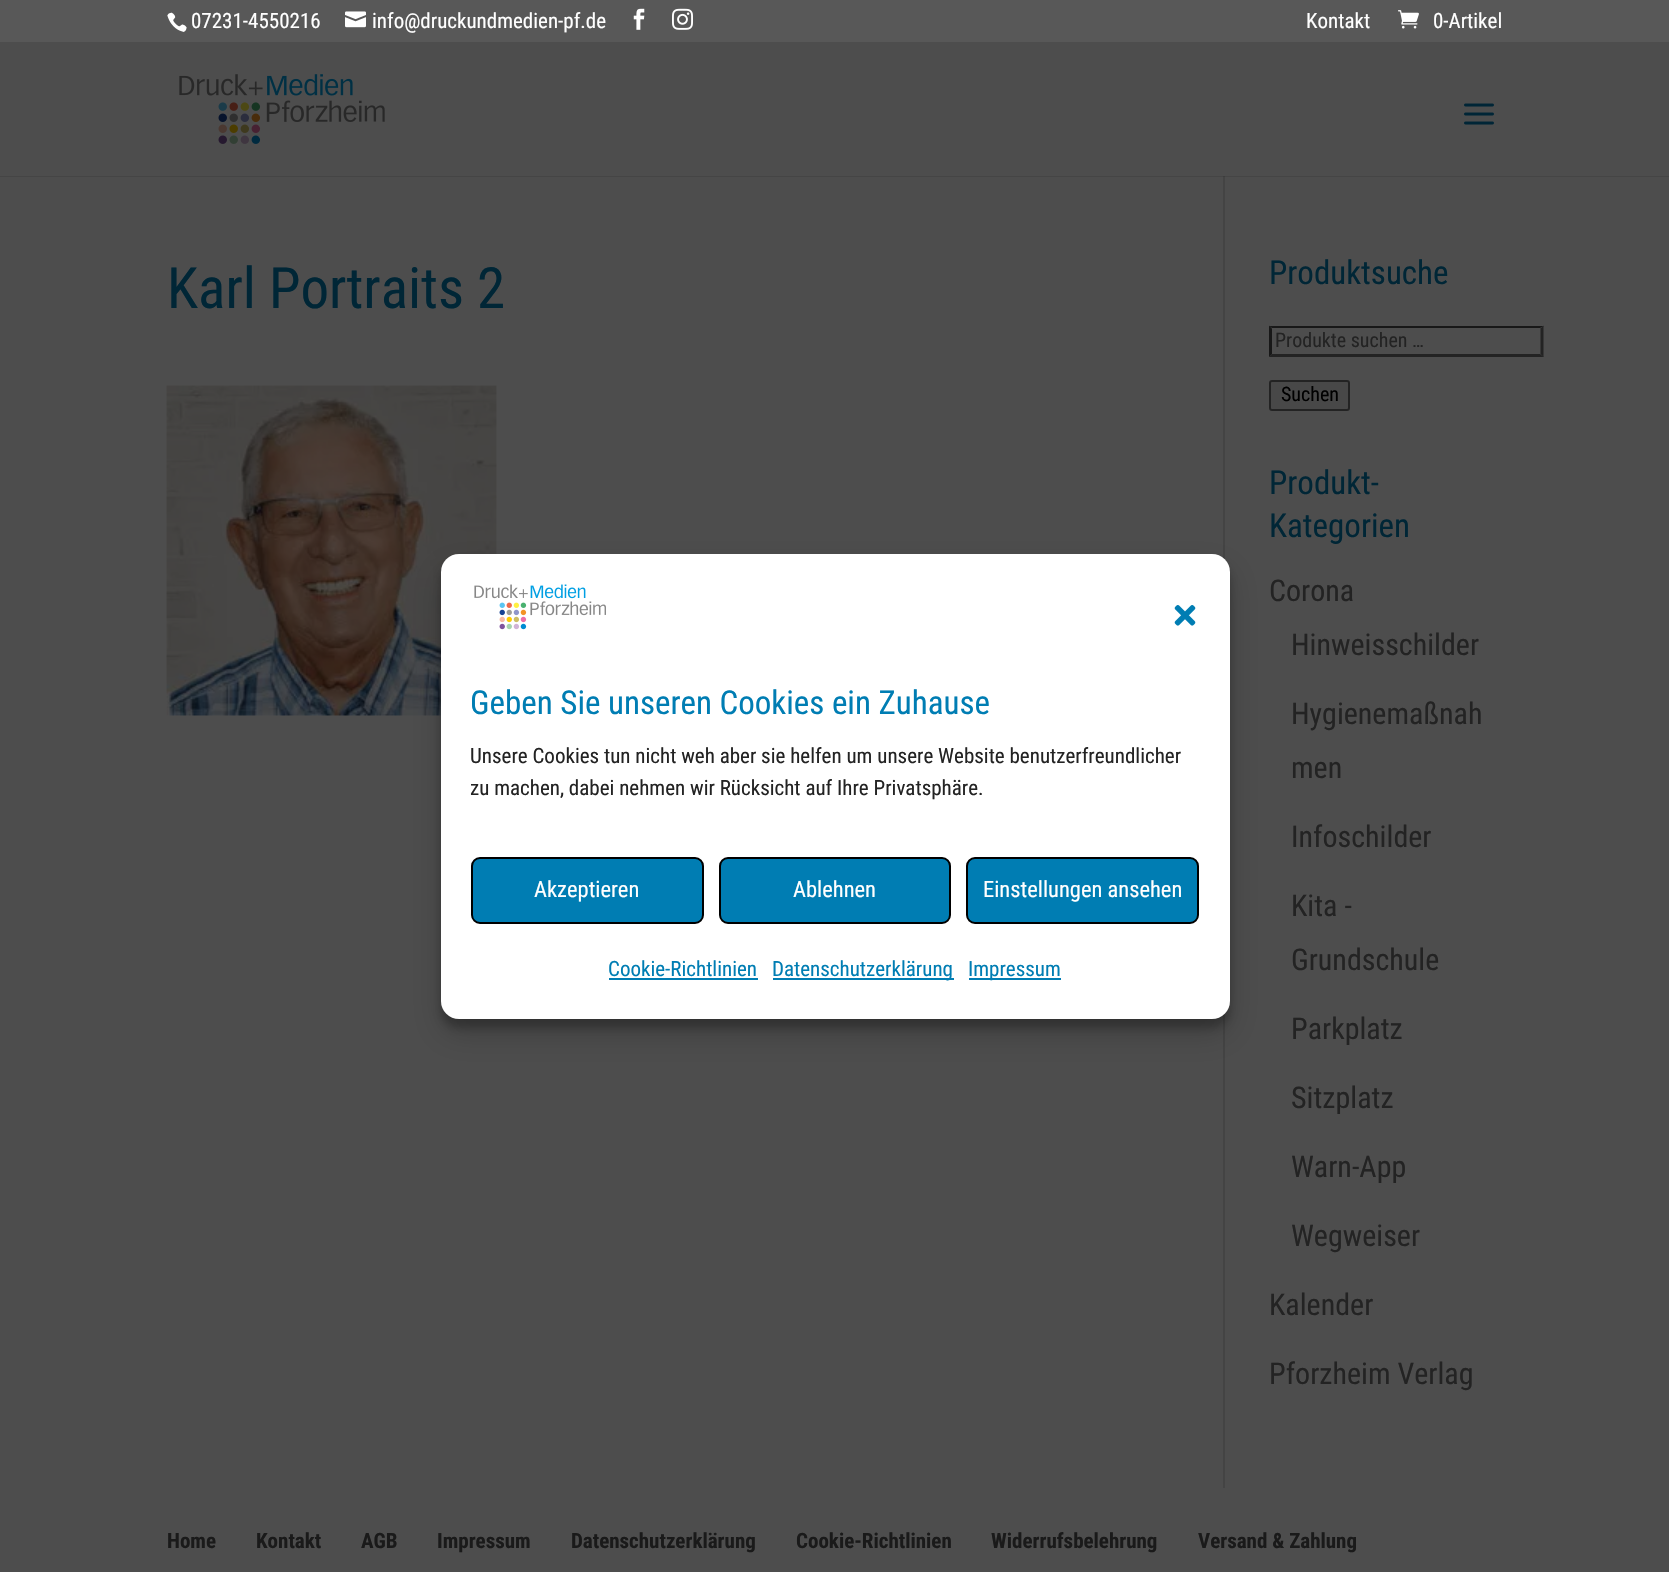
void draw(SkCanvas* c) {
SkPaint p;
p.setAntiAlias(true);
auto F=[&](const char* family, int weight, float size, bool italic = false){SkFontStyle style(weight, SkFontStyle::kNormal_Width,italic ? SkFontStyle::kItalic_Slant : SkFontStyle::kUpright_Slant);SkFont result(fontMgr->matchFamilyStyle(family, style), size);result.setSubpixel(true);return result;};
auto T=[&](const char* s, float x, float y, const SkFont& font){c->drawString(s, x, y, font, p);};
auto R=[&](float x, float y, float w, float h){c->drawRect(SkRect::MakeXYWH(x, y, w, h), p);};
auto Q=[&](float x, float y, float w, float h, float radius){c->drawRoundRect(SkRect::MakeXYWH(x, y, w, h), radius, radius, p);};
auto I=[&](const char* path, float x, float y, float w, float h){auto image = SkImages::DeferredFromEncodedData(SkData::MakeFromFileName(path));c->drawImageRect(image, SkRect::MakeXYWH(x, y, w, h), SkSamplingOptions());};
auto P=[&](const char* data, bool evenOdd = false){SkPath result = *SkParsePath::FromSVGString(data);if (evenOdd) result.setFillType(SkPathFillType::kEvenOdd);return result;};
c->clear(0xff4d4d4d);
p.setColor(0xff585858);
R(0,0,1669,42);
I("1.png",167,12,20,20);
auto f1 = F("Roboto Condensed",400,21);
p.setColor(0xffffffff);
T("07231-4550216",191,28,f1);
I("2.png",345,11,21,17);
T("info@druckundmedien-pf.de",372,28,f1);
I("3.png",633,8,12,22);
I("4.png",672,8,21,22);
T("Kontakt",1306,28,f1);
I("5.png",1398,10,21,19);
T("0-Artikel",1433,28,f1);
p.setColor(0xff444444);
R(1223,176,2,1312);
p.setColor(0x1a000000);
c->drawPath(P("M0 176v1h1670v-133v132z"),p);
I("6.png",179,74,206,70);
I("7.png",1464,103,30,22);
auto f2 = F("Roboto Condensed",400,57);
p.setColor(0xff002636);
T("Karl Portraits 2",167,308,f2);
I("8.png",166,385,331,331);
auto f3 = F("Roboto Condensed",400,33);
T("Produktsuche",1269,284,f3);
p.setColor(0xff181818);
c->drawPath(P("M1269 326h275l-4 2h-268z"),p);
p.setColor(0xff232323);
c->drawPath(P("M1543.5 325.5v31.5l-3-3v-25.5z"),p);
c->drawPath(P("M1544 357h-275l3-3h268z"),p);
p.setColor(0xff181818);
c->drawPath(P("M1269 357v-31.5l3 3v25.5z"),p);
auto f4 = F("Roboto Condensed",400,20);
p.setColor(0xff232323);
T("Produkte suchen …",1275,347,f4);
p.setColor(0xff484848);
c->drawRoundRect(SkRect::MakeXYWH(1270,381,79,29),2,2,p);
p.setStroke(true);
p.setStrokeWidth(2);
p.setColor(0xff232323);
c->drawRoundRect(SkRect::MakeXYWH(1270,381,79,29),2,2,p);
p.setStroke(false);
p.setColor(0xff000000);
T("Suchen",1281,401,f4);
p.setColor(0xff002636);
T("Produkt-",1269,494,f3);
T("Kategorien",1269,537,f3);
auto f5 = F("Roboto Condensed",400,30);
p.setColor(0xff232323);
T("Corona",1269,601,f5);
T("Hinweisschilder",1291,655,f5);
T("Hygienemaßnah",1291,724,f5);
T("men",1291,778,f5);
T("Infoschilder",1291,847,f5);
T("Kita -",1291,916,f5);
T("Grundschule",1291,970,f5);
T("Parkplatz",1291,1039,f5);
T("Sitzplatz",1291,1108,f5);
T("Warn-App",1291,1177,f5);
T("Wegweiser",1291,1246,f5);
T("Kalender",1269,1315,f5);
T("Pforzheim Verlag",1269,1384,f5);
auto f6 = F("Roboto Condensed",700,21);
p.setColor(0xff1a1a1a);
T("Home",167,1548,f6);
T("Kontakt",256,1548,f6);
T("AGB",361,1548,f6);
T("Impressum",437,1548,f6);
T("Datenschutzerklärung",571,1548,f6);
T("Cookie-Richtlinien",796,1548,f6);
T("Widerrufsbelehrung",991,1548,f6);
T("Versand & Zahlung",1198,1548,f6);
p.setColor(0x3b000000);
p.setMaskFilter(SkMaskFilter::MakeBlur(kNormal_SkBlurStyle, 4.5));
c->drawRoundRect(SkRect::MakeXYWH(441,563,789,465),18,18,p);
p.setMaskFilter(nullptr);
p.setColor(0x30000000);
p.setMaskFilter(SkMaskFilter::MakeBlur(kNormal_SkBlurStyle, 15));
c->drawRoundRect(SkRect::MakeXYWH(441,569,789,465),18,18,p);
p.setMaskFilter(nullptr);
p.setColor(0xffffffff);
Q(441,554,789,465,18);
I("9.png",474,584,132,46);
I("10.png",1174,605,22,21);
p.setColor(0xff007db3);
T("Geben Sie unseren Cookies ein Zuhause",470,714,f3);
p.setColor(0xff232323);
T("Unsere Cookies tun nicht weh aber sie helfen um unsere Website benutzerfreundlicher",470,763,f1);
T("zu machen, dabei nehmen wir Rücksicht auf Ihre Privatsphäre.",470,795,f1);
p.setColor(0xff007db3);
c->drawRoundRect(SkRect::MakeXYWH(472,858,231,65),8,8,p);
p.setStroke(true);
p.setColor(0xff000000);
c->drawRoundRect(SkRect::MakeXYWH(472,858,231,65),8,8,p);
auto f7 = F("Roboto Condensed",400,22.5);
p.setStroke(false);
p.setColor(0xffffffff);
T("Akzeptieren",534,897,f7);
p.setColor(0xff007db3);
c->drawRoundRect(SkRect::MakeXYWH(720,858,230,65),8,8,p);
p.setStroke(true);
p.setColor(0xff000000);
c->drawRoundRect(SkRect::MakeXYWH(720,858,230,65),8,8,p);
p.setStroke(false);
p.setColor(0xffffffff);
T("Ablehnen",793,897,f7);
p.setColor(0xff007db3);
c->drawRoundRect(SkRect::MakeXYWH(967,858,231,65),8,8,p);
p.setStroke(true);
p.setColor(0xff000000);
c->drawRoundRect(SkRect::MakeXYWH(967,858,231,65),8,8,p);
p.setStroke(false);
p.setColor(0xffffffff);
T("Einstellungen ansehen",983,897,f7);
p.setColor(0xff007db3);
T("Cookie-Richtlinien",608,976,f1);
R(609,978,149,2);
R(773,978,181,2);
T("Datenschutzerklärung",772,976,f1);
R(969,978,92,2);
T("Impressum",968,976,f1);
}
